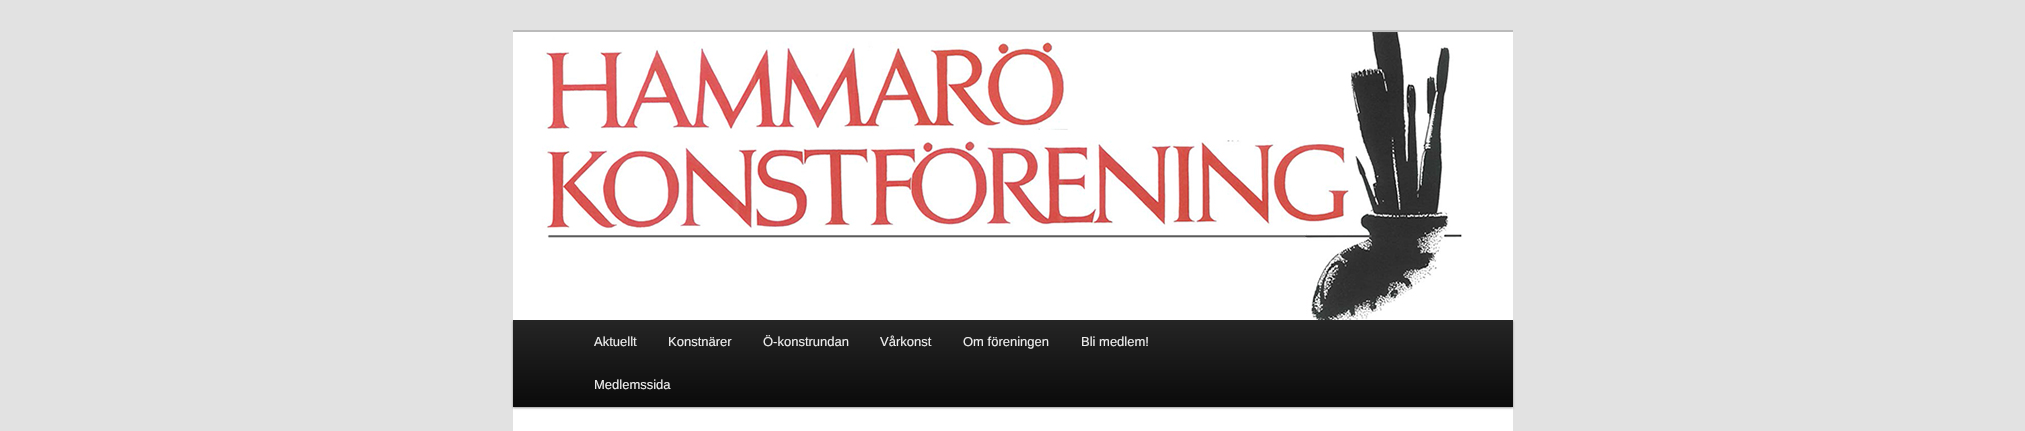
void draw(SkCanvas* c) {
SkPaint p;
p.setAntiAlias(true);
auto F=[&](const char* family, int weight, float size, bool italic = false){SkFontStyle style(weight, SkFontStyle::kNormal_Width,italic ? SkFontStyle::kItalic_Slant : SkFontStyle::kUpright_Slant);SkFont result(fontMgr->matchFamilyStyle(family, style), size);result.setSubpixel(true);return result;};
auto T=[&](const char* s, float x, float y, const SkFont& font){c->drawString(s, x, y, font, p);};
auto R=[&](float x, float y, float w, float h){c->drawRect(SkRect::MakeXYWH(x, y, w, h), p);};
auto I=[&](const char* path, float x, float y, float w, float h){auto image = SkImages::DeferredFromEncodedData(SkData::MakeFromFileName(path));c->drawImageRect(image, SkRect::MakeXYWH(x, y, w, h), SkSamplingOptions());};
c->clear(0xffe2e2e2);
p.setColor(0xffffffff);
R(513,407,1000,24);
p.setColor(0xffbbbbbb);
R(513,30,1000,2);
p.setColor(0x66000000);
p.setMaskFilter(SkMaskFilter::MakeBlur(kNormal_SkBlurStyle, 1));
c->drawRect(SkRect::MakeXYWH(513,321,1000,87),p);
p.setMaskFilter(nullptr);
I("1.png",513,32,1000,288);
{
const SkColor colors[] = {0xff252525,0xff0a0a0a};
const float stops[] = {0,1};
const SkPoint ends[] = {{1013,320}, {1013,407}};
p.setShader(SkGradientShader::MakeLinear(ends, colors, stops, 2, SkTileMode::kClamp));
p.setAlpha(255);
}
R(513,320,1000,87);
auto f1 = F("Liberation Sans",400,13);
p.setShader(nullptr);
p.setColor(0xffeeeeee);
T("Aktuellt",594,346,f1);
T("Konstnärer",668,346,f1);
T("Ö-konstrundan",763,346,f1);
T("Vårkonst",880,346,f1);
T("Om föreningen",963,346,f1);
T("Bli medlem!",1081,346,f1);
T("Medlemssida",594,389,f1);
}
